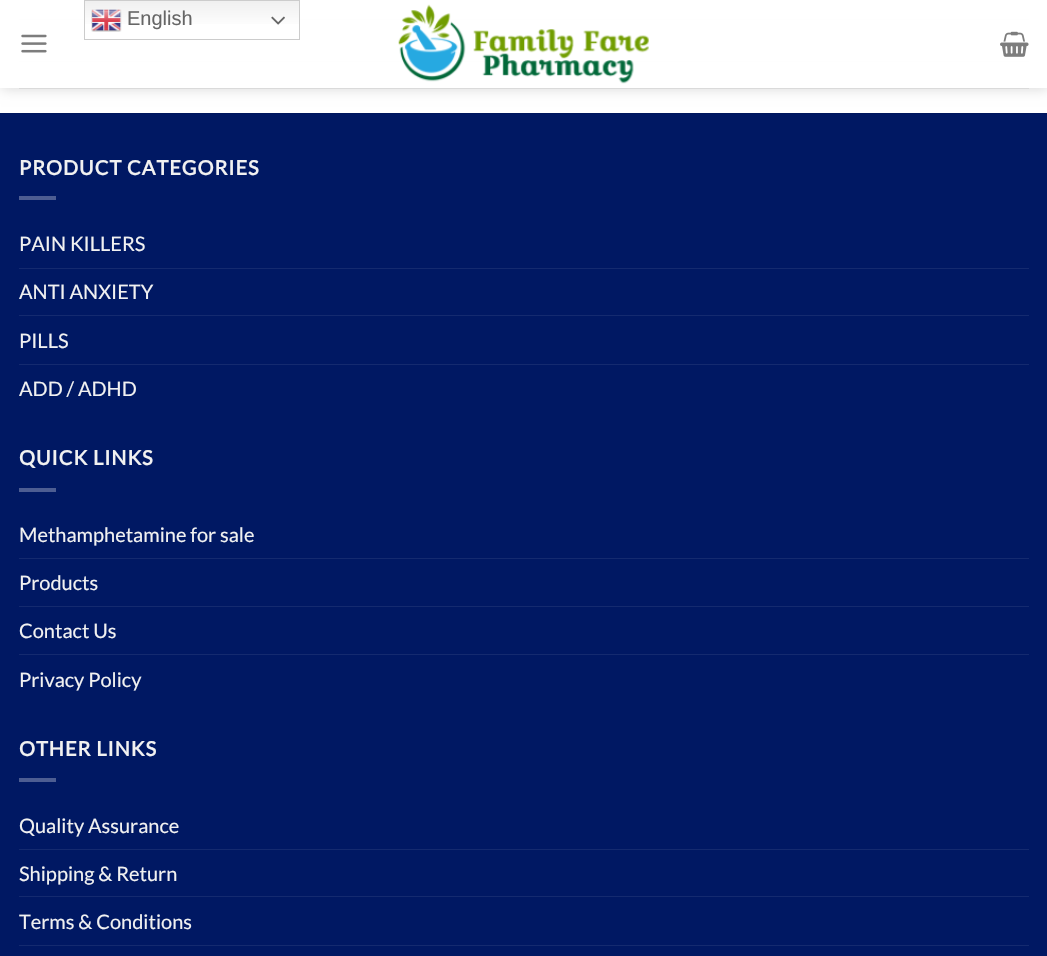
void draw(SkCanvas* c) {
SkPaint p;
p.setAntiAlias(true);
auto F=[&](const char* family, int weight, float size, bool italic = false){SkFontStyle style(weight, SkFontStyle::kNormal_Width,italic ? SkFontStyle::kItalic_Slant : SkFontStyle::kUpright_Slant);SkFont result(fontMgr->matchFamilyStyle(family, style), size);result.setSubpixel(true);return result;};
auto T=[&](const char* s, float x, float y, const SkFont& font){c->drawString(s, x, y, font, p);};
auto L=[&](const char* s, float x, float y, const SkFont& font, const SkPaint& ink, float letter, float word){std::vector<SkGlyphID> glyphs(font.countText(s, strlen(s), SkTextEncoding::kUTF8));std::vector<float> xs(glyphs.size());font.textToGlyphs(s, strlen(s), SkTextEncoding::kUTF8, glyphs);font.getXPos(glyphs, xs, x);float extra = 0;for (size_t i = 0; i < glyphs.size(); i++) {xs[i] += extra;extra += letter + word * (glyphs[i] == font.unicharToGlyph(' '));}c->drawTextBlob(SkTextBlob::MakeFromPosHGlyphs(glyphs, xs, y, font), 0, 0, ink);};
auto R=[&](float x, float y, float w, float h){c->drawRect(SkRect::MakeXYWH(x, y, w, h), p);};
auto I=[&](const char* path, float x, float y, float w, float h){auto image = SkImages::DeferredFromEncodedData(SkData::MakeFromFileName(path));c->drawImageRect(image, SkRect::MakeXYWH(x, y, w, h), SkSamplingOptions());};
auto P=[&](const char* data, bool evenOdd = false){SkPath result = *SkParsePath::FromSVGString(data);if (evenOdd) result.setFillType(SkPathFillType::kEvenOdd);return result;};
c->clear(0xffffffff);
p.setColor(0xffececec);
R(19,19,1010,1);
R(19,61,1010,1);
c->save();
c->clipPath(P("M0 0h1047v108h-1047zm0 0h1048v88h-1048z",true),true);
p.setColor(0x26000000);
p.setMaskFilter(SkMaskFilter::MakeBlur(kNormal_SkBlurStyle, 6));
c->drawRect(SkRect::MakeXYWH(1,1,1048,88),p);
p.setMaskFilter(nullptr);
c->restore();
p.setColor(0xe6ffffff);
R(0,19,1047,69);
{
const SkColor colors[] = {0xffefefef,0xffffffff};
const float stops[] = {0,.7};
const SkPoint ends[] = {{192,0}, {192,40}};
p.setShader(SkGradientShader::MakeLinear(ends, colors, stops, 2, SkTileMode::kClamp));
p.setAlpha(255);
}
R(85,1,214,23);
p.setStroke(true);
p.setStrokeWidth(1);
p.setShader(nullptr);
p.setColor(0xffcccccc);
c->drawRect(SkRect::MakeXYWH(84.5,.5,215,39),p);
I("1.png",91,9,31,23);
auto f1 = F("Liberation Sans",400,20);
p.setStroke(false);
p.setColor(0xff666666);
T("English",127,25,f1);
I("2.png",271,16,14,9);
I("3.png",21,34,26,19);
I("4.png",398,4,251,80);
I("5.png",1000,31,29,26);
p.setColor(0xffdadada);
R(19,88,1010,1);
p.setColor(0xff001863);
R(0,114,1047,842);
p.setColor(0xff00175e);
R(0,113,1047,1);
auto f2 = F("Lato",700,20);
p.setColor(0xfff1f1f1);
L("PRODUCT CATEGORIES",19,175,f2,p,1,0);
p.setColor(0xff4d5d92);
R(19,196,37,4);
auto f3 = F("Lato",400,20);
p.setColor(0xfff1f1f1);
T("PAIN KILLERS",19,251,f3);
p.setColor(0xff142a6f);
R(19,268,1010,1);
p.setColor(0xfff1f1f1);
T("ANTI ANXIETY",19,299,f3);
p.setColor(0xff142a6f);
R(19,315,1010,1);
p.setColor(0xfff1f1f1);
T("PILLS",19,348,f3);
p.setColor(0xff142a6f);
R(19,364,1010,1);
p.setColor(0xfff1f1f1);
T("ADD / ADHD",19,396,f3);
L("QUICK LINKS",19,465,f2,p,1,0);
p.setColor(0xff4d5d92);
R(19,488,37,4);
p.setColor(0xfff1f1f1);
T("Methamphetamine for sale",19,542,f3);
p.setColor(0xff142a6f);
R(19,558,1010,1);
p.setColor(0xfff1f1f1);
T("Products",19,590,f3);
p.setColor(0xff142a6f);
R(19,606,1010,1);
p.setColor(0xfff1f1f1);
T("Contact Us",19,638,f3);
p.setColor(0xff142a6f);
R(19,654,1010,1);
p.setColor(0xfff1f1f1);
T("Privacy Policy",19,687,f3);
L("OTHER LINKS",19,756,f2,p,1,0);
p.setColor(0xff4d5d92);
R(19,778,37,4);
p.setColor(0xfff1f1f1);
T("Quality Assurance",19,833,f3);
p.setColor(0xff142a6f);
R(19,849,1010,1);
p.setColor(0xfff1f1f1);
T("Shipping & Return",19,881,f3);
p.setColor(0xff142a6f);
R(19,896,1010,1);
p.setColor(0xfff1f1f1);
T("Terms & Conditions",19,929,f3);
p.setColor(0xff142a6f);
R(19,945,1010,1);
}
